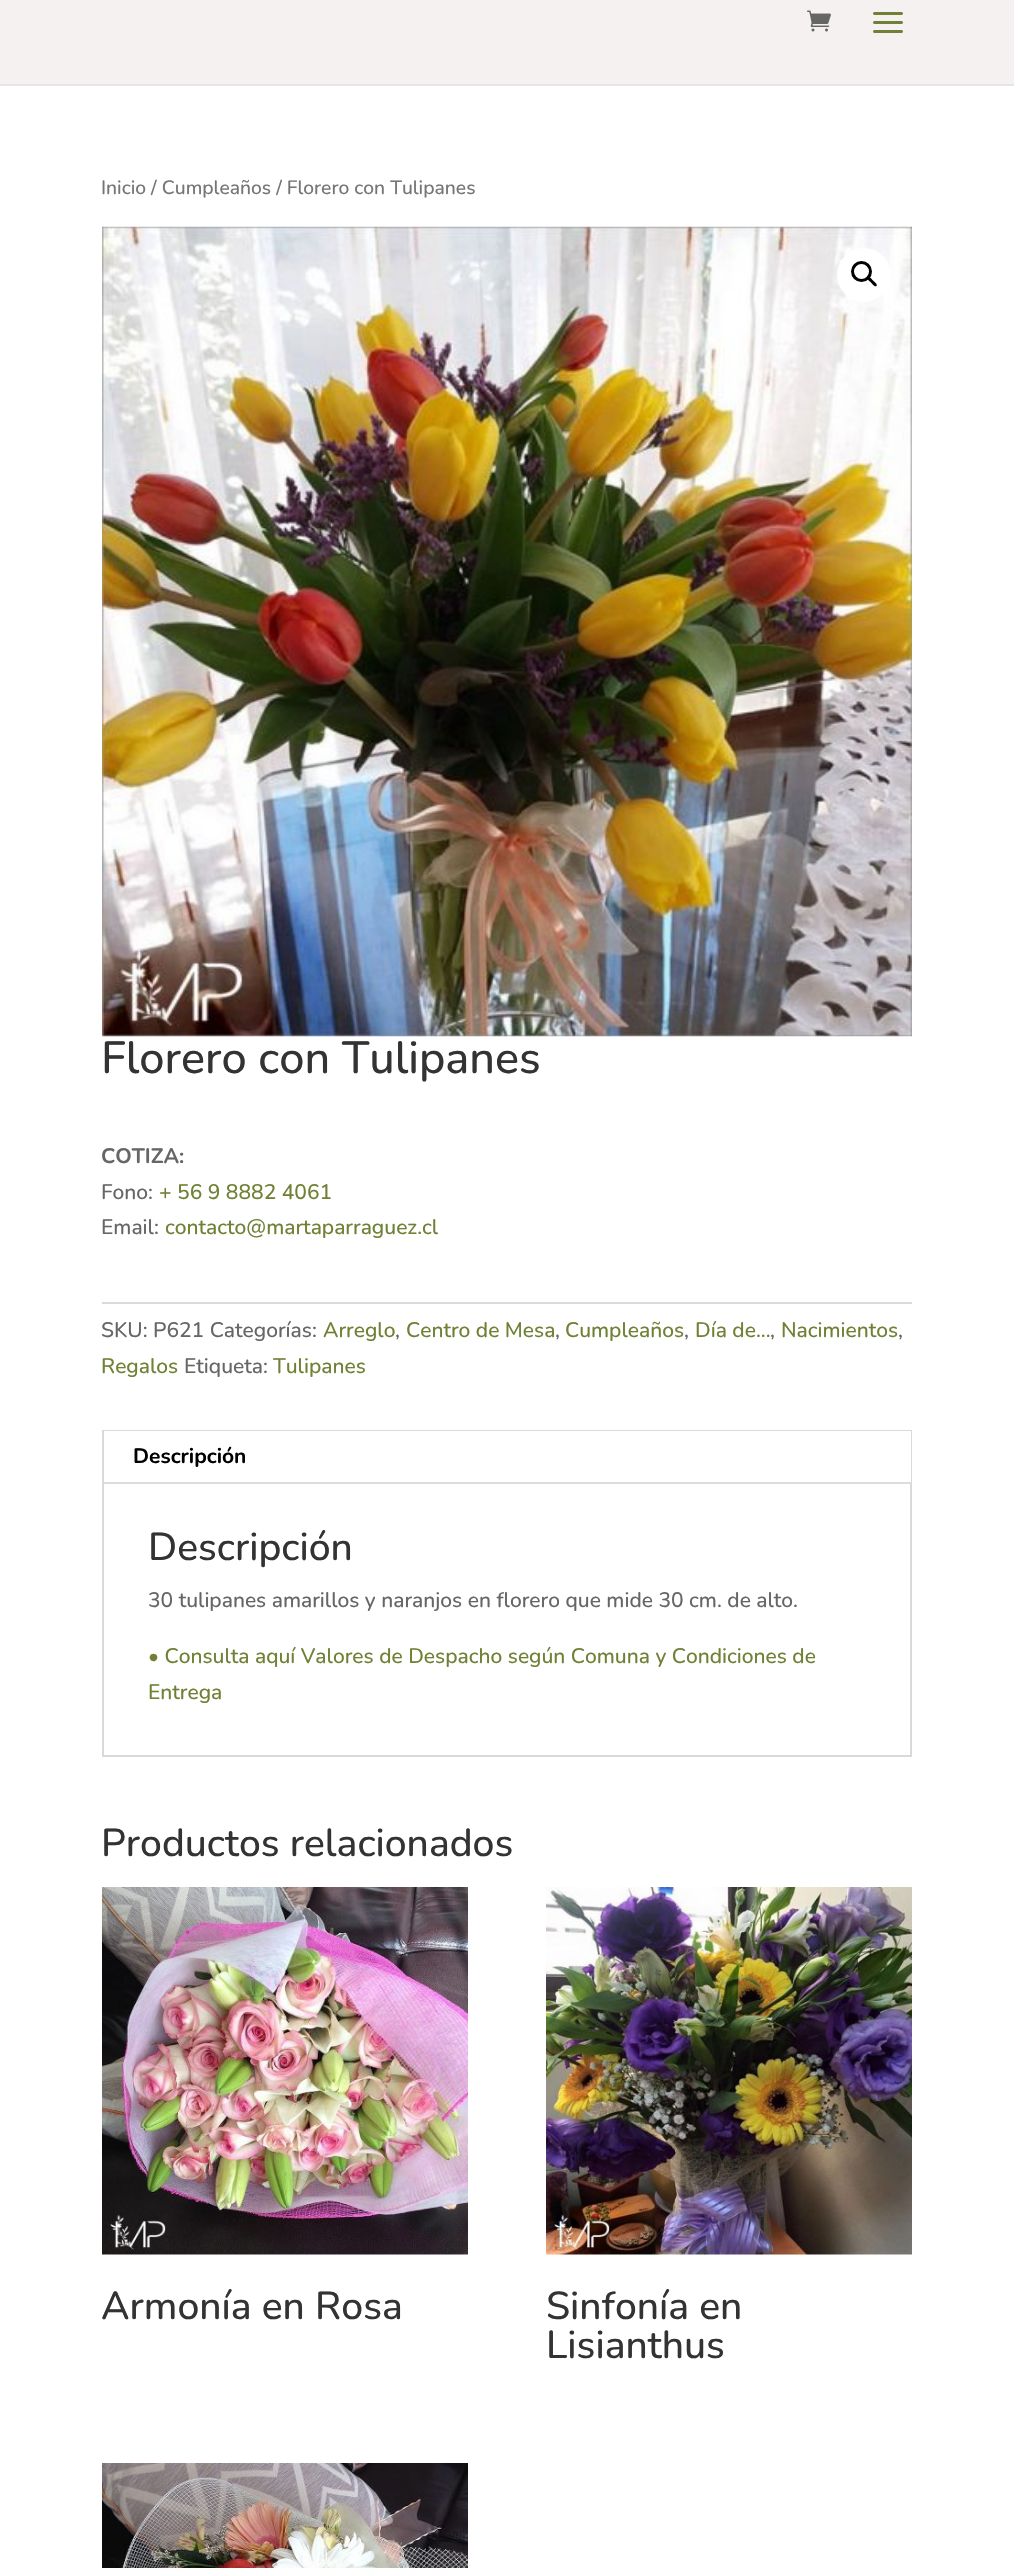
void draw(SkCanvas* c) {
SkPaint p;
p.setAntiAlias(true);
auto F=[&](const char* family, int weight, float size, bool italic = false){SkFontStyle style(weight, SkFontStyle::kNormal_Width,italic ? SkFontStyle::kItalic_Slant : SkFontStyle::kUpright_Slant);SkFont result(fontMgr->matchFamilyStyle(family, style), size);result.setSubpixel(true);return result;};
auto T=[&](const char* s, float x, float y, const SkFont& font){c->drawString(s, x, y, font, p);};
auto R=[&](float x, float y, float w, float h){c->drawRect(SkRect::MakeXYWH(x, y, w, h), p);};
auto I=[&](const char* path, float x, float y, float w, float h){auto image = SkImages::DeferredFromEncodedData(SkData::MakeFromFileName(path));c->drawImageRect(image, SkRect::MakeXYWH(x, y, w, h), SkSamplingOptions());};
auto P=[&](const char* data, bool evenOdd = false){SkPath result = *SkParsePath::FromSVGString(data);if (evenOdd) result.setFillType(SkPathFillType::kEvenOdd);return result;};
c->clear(0xffffffff);
p.setColor(0xffe6e6e6);
R(0,84,1014,2);
p.setColor(0xfff5f1f0);
R(0,0,1014,84);
I("1.png",807,10,24,22);
I("2.png",873,12,30,21);
auto f1 = F("Nunito",500,19.3);
p.setColor(0xff767676);
T("Inicio / Cumpleaños / Florero con Tulipanes",101,194,f1);
I("3.png",102,226,810,811);
p.setColor(0xffffffff);
c->drawCircle(864,275,27,p);
p.setStroke(true);
p.setStrokeWidth(3);
p.setColor(0xff000000);
c->drawCircle(861.5,271.5,9,p);
p.setStroke(false);
c->drawPath(P("M868 277.5c1.5-2 4 2 5 3c1 1 5 3.5 3.5 5.5c-2 1.5-4.5-2.5-5.5-3.5c-1-1-5-3.5-3-5z"),p);
auto f2 = F("Nunito",500,45);
p.setColor(0xff333333);
T("Florero con Tulipanes",101,1073,f2);
auto f3 = F("Nunito",700,21);
p.setColor(0xff666666);
T("COTIZA:",101,1163,f3);
auto f4 = F("Nunito",500,21);
T("Fono:",101,1199,f4);
p.setColor(0xff708136);
T("+ 56 9 8882 4061",159,1199,f4);
p.setColor(0xff666666);
T("Email:",101,1234,f4);
p.setColor(0xff708136);
T("contacto@martaparraguez.cl",165,1234,f4);
p.setColor(0xffdadada);
R(102,1302,810,2);
p.setColor(0xff666666);
T("SKU: P621 Categorías:",101,1337,f4);
p.setColor(0xff708136);
T("Arreglo",323,1337,f4);
p.setColor(0xff666666);
T(",",395,1337,f4);
p.setColor(0xff708136);
T("Centro de Mesa",406,1337,f4);
p.setColor(0xff666666);
T(",",555,1337,f4);
p.setColor(0xff708136);
T("Cumpleaños",565,1337,f4);
p.setColor(0xff666666);
T(",",684,1337,f4);
p.setColor(0xff708136);
T("Día de...",695,1337,f4);
p.setColor(0xff666666);
T(",",770,1337,f4);
p.setColor(0xff708136);
T("Nacimientos",781,1337,f4);
p.setColor(0xff666666);
T(",",898,1337,f4);
p.setColor(0xff708136);
T("Regalos",101,1373,f4);
p.setColor(0xff666666);
T("Etiqueta:",184,1373,f4);
p.setColor(0xff708136);
T("Tulipanes",273,1373,f4);
p.setStroke(true);
p.setStrokeWidth(2);
p.setColor(0xffd9d9d9);
c->drawRect(SkRect::MakeXYWH(103,1431,808,325),p);
p.setStroke(false);
p.setColor(0xffffffff);
R(104,1431,807,51);
p.setColor(0xffe0dadf);
R(104,1482,807,2);
p.setColor(0xff000000);
T("Descripción",133,1463,f3);
auto f5 = F("Nunito",500,39);
p.setColor(0xff333333);
T("Descripción",148,1560,f5);
p.setColor(0xff666666);
T("30 tulipanes amarillos y naranjos en florero que mide 30 cm. de alto.",148,1607,f4);
p.setColor(0xff708136);
T("• Consulta aquí Valores de Despacho según Comuna y Condiciones de",148,1663,f4);
T("Entrega",148,1699,f4);
p.setColor(0xff333333);
T("Productos relacionados",101,1856,f5);
I("4.png",102,1887,366,368);
T("Armonía en Rosa",101,2319,f5);
I("5.png",546,1887,366,368);
T("Sinfonía en",546,2319,f5);
T("Lisianthus",546,2358,f5);
I("6.png",102,2463,366,105);
}
